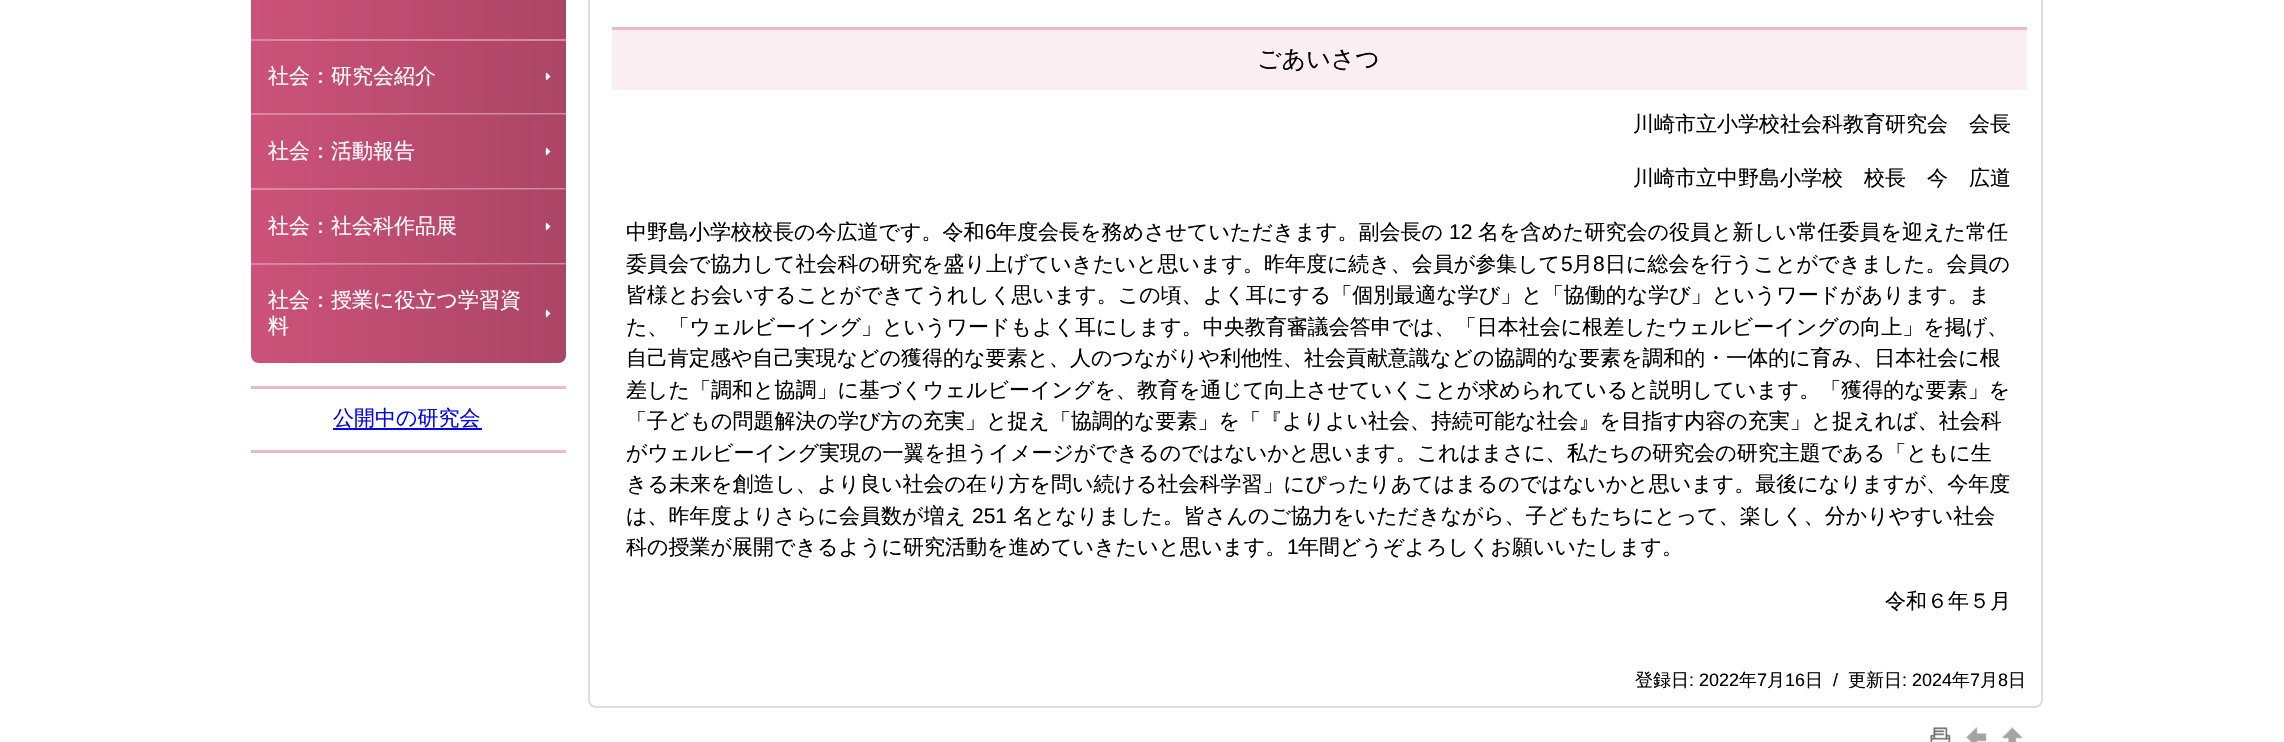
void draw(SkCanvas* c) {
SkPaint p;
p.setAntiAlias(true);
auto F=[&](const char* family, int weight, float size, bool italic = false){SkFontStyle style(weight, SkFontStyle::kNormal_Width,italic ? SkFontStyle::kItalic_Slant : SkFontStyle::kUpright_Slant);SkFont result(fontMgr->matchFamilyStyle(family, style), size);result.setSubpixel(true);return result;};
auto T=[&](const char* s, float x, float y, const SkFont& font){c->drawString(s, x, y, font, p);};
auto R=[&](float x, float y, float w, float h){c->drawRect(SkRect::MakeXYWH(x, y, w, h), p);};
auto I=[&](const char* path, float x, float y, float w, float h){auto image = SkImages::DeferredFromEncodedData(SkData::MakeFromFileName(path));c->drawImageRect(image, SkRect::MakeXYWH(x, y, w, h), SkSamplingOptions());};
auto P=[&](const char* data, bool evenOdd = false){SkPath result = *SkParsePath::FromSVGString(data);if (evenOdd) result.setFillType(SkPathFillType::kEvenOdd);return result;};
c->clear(0xffffffff);
{
const SkColor colors[] = {0xffcc527a,0xffab4566};
const float stops[] = {0,1};
const SkPoint ends[] = {{251,-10}, {566,-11}};
p.setShader(SkGradientShader::MakeLinear(ends, colors, stops, 2, SkTileMode::kClamp));
p.setAlpha(255);
}
R(251,0,315,39);
p.setShader(nullptr);
p.setColor(0xffdb86a2);
R(251,39,315,2);
{
const SkColor colors[] = {0xffcc527a,0xffab4566};
const float stops[] = {0,1};
const SkPoint ends[] = {{251,77}, {566,76}};
p.setShader(SkGradientShader::MakeLinear(ends, colors, stops, 2, SkTileMode::kClamp));
p.setAlpha(255);
}
R(251,41,315,72);
auto f1 = F("WenQuanYi Zen Hei",500,21);
p.setShader(nullptr);
p.setColor(0xffffffff);
T("社会：研究会紹介",268,83,f1);
c->drawPath(P("M550.5 76.5l-4 4c-1-1-1-7.5 0-8z"),p);
p.setColor(0xffcc527a);
R(251,115,315,73);
p.setColor(0xffdb86a2);
R(251,113,315,2);
{
const SkColor colors[] = {0x007a3149,0x667a3149};
const float stops[] = {0,1};
const SkPoint ends[] = {{251,151}, {566,151}};
p.setShader(SkGradientShader::MakeLinear(ends, colors, stops, 2, SkTileMode::kClamp));
p.setAlpha(255);
}
R(271,114,295,74);
p.setShader(nullptr);
p.setColor(0xffffffff);
T("社会：活動報告",268,158,f1);
c->drawPath(P("M550.5 151.5l-4 4c-1-1-1-7.5 0-8z"),p);
p.setColor(0xffcc527a);
R(251,190,315,73);
p.setColor(0xffdb86a2);
R(251,188,315,2);
{
const SkColor colors[] = {0x007a3149,0x667a3149};
const float stops[] = {0,1};
const SkPoint ends[] = {{251,226}, {566,226}};
p.setShader(SkGradientShader::MakeLinear(ends, colors, stops, 2, SkTileMode::kClamp));
p.setAlpha(255);
}
R(271,189,295,74);
p.setShader(nullptr);
p.setColor(0xffffffff);
T("社会：社会科作品展",268,233,f1);
c->drawPath(P("M550.5 226.5l-4 4c-1-1-1-7.5 0-8z"),p);
p.setColor(0xffcc527a);
c->drawPath(P("M251 263h315v92c0 4.5-3.5 8-8 8h-299c-4.5 0-8-3.5-8-8z"),p);
p.setColor(0xffdb86a2);
R(251,263,315,2);
{
const SkColor colors[] = {0x007a3149,0x667a3149};
const float stops[] = {0,1};
const SkPoint ends[] = {{251,314}, {566,314}};
p.setShader(SkGradientShader::MakeLinear(ends, colors, stops, 2, SkTileMode::kClamp));
p.setAlpha(255);
}
c->drawPath(P("M251 264h315v91c0 4.5-3.5 8-8 8h-299c-4.5 0-8-3.5-8-8z"),p);
p.setShader(nullptr);
p.setColor(0xffffffff);
T("社会：授業に役立つ学習資",268,307,f1);
c->drawPath(P("M550.5 313.5l-4 4c-1-1-1-7.5 0-8z"),p);
T("料",268,333,f1);
p.setColor(0xffebbaca);
R(251,386,315,3);
R(251,450,315,3);
p.setColor(0xff0000ee);
T("公開中の研究会",333,425,f1);
R(333,428,149,2);
p.setStroke(true);
p.setStrokeWidth(2);
p.setColor(0xffdddddd);
c->drawRoundRect(SkRect::MakeXYWH(589,-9,1453,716),7,7,p);
p.setStroke(false);
p.setColor(0xfffaeef2);
R(612,30,1415,60);
p.setColor(0xffebbaca);
R(612,27,1415,3);
auto f2 = F("WenQuanYi Zen Hei",500,24);
p.setColor(0xff000000);
T("ごあいさつ",1257,67,f2);
T("川崎市立小学校社会科教育研究会　会長",1633,131,f1);
T("川崎市立中野島小学校　校長　今　広道",1633,185,f1);
T("中野島小学校校長の今広道です。令和",626,239,f1);
auto f3 = F("Liberation Sans",400,21);
T("6",985,239,f3);
T("年度会長を務めさせていただきます。副会長の",996,239,f1);
T("12",1449,239,f3);
T("名を含めた研究会の役員と新しい常任委員を迎えた常任",1478,239,f1);
T("委員会で協力して社会科の研究を盛り上げていきたいと思います。昨年度に続き、会員が参集して",626,271,f1);
T("5",1561,271,f3);
T("月",1572,271,f1);
T("8",1593,271,f3);
T("日に総会を行うことができました。会員の",1605,271,f1);
T("皆様とお会いすることができてうれしく思います。この頃、よく耳にする「個別最適な学び」と「協働的な学び」というワードがあります。ま",626,302,f1);
T("た、「ウェルビーイング」というワードもよく耳にします。中央教育審議会答申では、「日本社会に根差したウェルビーイングの向上」を掲げ、",626,334,f1);
T("自己肯定感や自己実現などの獲得的な要素と、人のつながりや利他性、社会貢献意識などの協調的な要素を調和的・一体的に育み、日本社会に根",626,365,f1);
T("差した「調和と協調」に基づくウェルビーイングを、教育を通じて向上させていくことが求められていると説明しています。「獲得的な要素」を",626,397,f1);
T("「子どもの問題解決の学び方の充実」と捉え「協調的な要素」を「『よりよい社会、持続可能な社会』を目指す内容の充実」と捉えれば、社会科",626,428,f1);
T("がウェルビーイング実現の一翼を担うイメージができるのではないかと思います。これはまさに、私たちの研究会の研究主題である「ともに生",626,460,f1);
T("きる未来を創造し、より良い社会の在り方を問い続ける社会科学習」にぴったりあてはまるのではないかと思います。最後になりますが、今年度",626,491,f1);
T("は、昨年度よりさらに会員数が増え",626,523,f1);
T("251",972,523,f3);
T("名となりました。皆さんのご協力をいただきながら、子どもたちにとって、楽しく、分かりやすい社会",1013,523,f1);
T("科の授業が展開できるように研究活動を進めていきたいと思います。",626,554,f1);
T("1",1287,554,f3);
T("年間どうぞよろしくお願いいたします。",1298,554,f1);
T("令和６年５月",1885,608,f1);
auto f4 = F("WenQuanYi Zen Hei",500,18);
T("登録日",1635,686,f4);
auto f5 = F("Liberation Sans",400,18);
T(": 2022",1689,686,f5);
T("年",1739,686,f4);
T("7",1757,686,f5);
T("月",1767,686,f4);
T("16",1785,686,f5);
T("日",1805,686,f4);
T("/",1833,686,f5);
T("更新日",1848,686,f4);
T(": 2024",1902,686,f5);
T("年",1952,686,f4);
T("7",1970,686,f5);
T("月",1980,686,f4);
T("8",1998,686,f5);
T("日",2008,686,f4);
I("1.png",1930,727,21,15);
I("2.png",1966,727,21,15);
I("3.png",2002,727,21,15);
}
